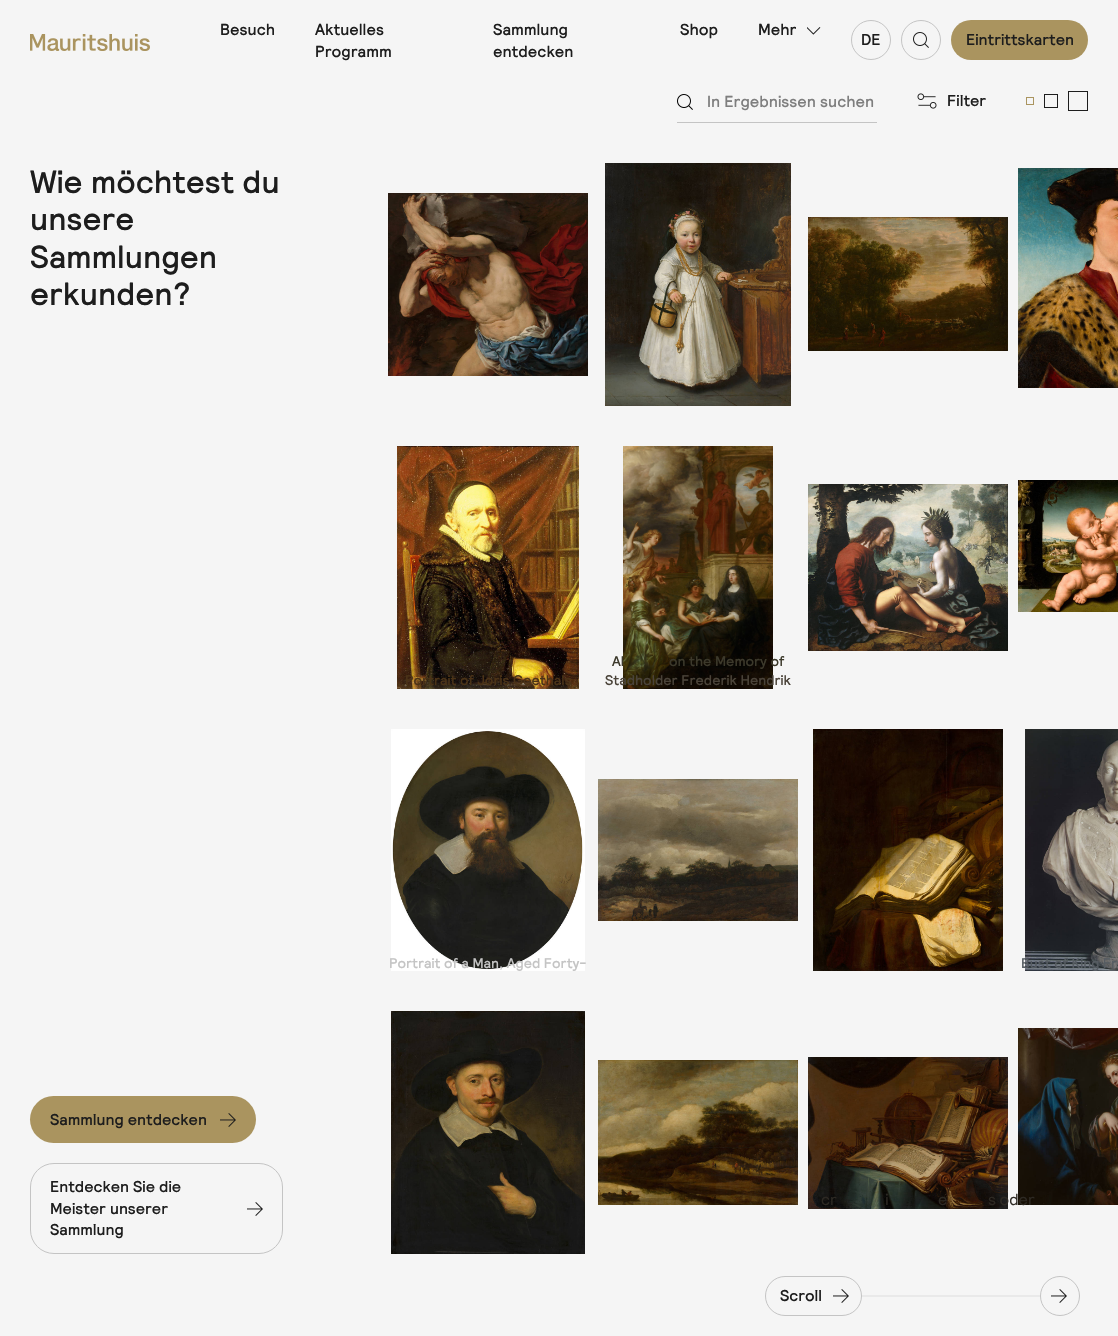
void draw(SkCanvas* c) {
SkPaint p;
p.setAntiAlias(true);
auto F=[&](const char* family, int weight, float size, bool italic = false){SkFontStyle style(weight, SkFontStyle::kNormal_Width,italic ? SkFontStyle::kItalic_Slant : SkFontStyle::kUpright_Slant);SkFont result(fontMgr->matchFamilyStyle(family, style), size);result.setSubpixel(true);return result;};
auto T=[&](const char* s, float x, float y, const SkFont& font){c->drawString(s, x, y, font, p);};
auto R=[&](float x, float y, float w, float h){c->drawRect(SkRect::MakeXYWH(x, y, w, h), p);};
auto Q=[&](float x, float y, float w, float h, float radius){c->drawRoundRect(SkRect::MakeXYWH(x, y, w, h), radius, radius, p);};
auto I=[&](const char* path, float x, float y, float w, float h){auto image = SkImages::DeferredFromEncodedData(SkData::MakeFromFileName(path));c->drawImageRect(image, SkRect::MakeXYWH(x, y, w, h), SkSamplingOptions());};
c->clear(0xfff5f5f5);
I("1.png",30,34,120,17);
auto f1 = F("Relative",500,16);
p.setColor(0xff1d1d1d);
T("Besuch",220,35,f1);
T("Aktuelles",315,35,f1);
T("Programm",315,57,f1);
T("Sammlung",493,35,f1);
T("entdecken",493,57,f1);
T("Shop",680,35,f1);
T("Mehr",758,35,f1);
I("2.png",807,27,14,8);
p.setStroke(true);
p.setStrokeWidth(1);
p.setColor(0xffc4c4c4);
c->drawCircle(871,40,19.5,p);
auto f2 = F("Relative",500,15.75);
p.setStroke(false);
p.setColor(0xff1d1d1d);
T("DE",861,45,f2);
p.setStroke(true);
p.setColor(0xffc4c4c4);
c->drawCircle(921,40,19.5,p);
I("3.png",913,32,16,16);
p.setStroke(false);
p.setColor(0xffaa945f);
Q(951,20,137,40,20);
p.setColor(0xff1d1d1d);
T("Eintrittskarten",966,45,f2);
I("4.png",677,94,16,16);
p.setColor(0xffc4c4c4);
R(677,122,200,1);
p.setColor(0xff7e7e7e);
T("In Ergebnissen suchen",707,107,f1);
I("5.png",917,93,20,16);
p.setColor(0xff1d1d1d);
T("Filter",947,106,f2);
p.setStroke(true);
p.setColor(0xffaa945f);
c->drawRect(SkRect::MakeXYWH(1026.5,97.5,7,7),p);
p.setColor(0xff1d1d1d);
c->drawRect(SkRect::MakeXYWH(1044.5,94.5,13,13),p);
c->drawRect(SkRect::MakeXYWH(1068.5,91.5,19,19),p);
auto f3 = F("Relative",500,32);
p.setStroke(false);
T("Wie möchtest du",30,193,f3);
T("unsere",30,230,f3);
T("Sammlungen",30,268,f3);
T("erkunden?",30,305,f3);
p.setColor(0xffaa945f);
Q(30,1096,226,47,23.5);
p.setColor(0xff1d1d1d);
T("Sammlung entdecken",50,1125,f2);
I("6.png",220,1113,16,14);
p.setStroke(true);
p.setColor(0xffc4c4c4);
c->drawRoundRect(SkRect::MakeXYWH(30.5,1163.5,252,90),23.5,23.5,p);
p.setStroke(false);
p.setColor(0xff1d1d1d);
T("Entdecken Sie die",50,1192,f2);
T("Meister unserer",50,1214,f2);
I("7.png",247,1202,16,14);
T("Sammlung",50,1235,f2);
I("8.png",388,193,200,183);
I("9.png",605,163,186,243);
I("10.png",808,217,200,134);
I("11.png",1018,168,100,220);
I("12.png",808,484,200,167);
I("13.png",1018,480,100,132);
I("14.png",397,446,182,243);
auto f4 = F("Relative",500,14);
p.setColor(0xff4b3317);
T("Portrait of Joris Goethals",405,685,f4);
I("15.png",623,446,150,243);
p.setColor(0xff3c392b);
T("Al",612,666,f4);
T("on the Memory of",669,666,f4);
p.setColor(0xff4a4339);
T("Stadholder Frederik Hendrik",605,685,f4);
I("16.png",598,779,200,142);
I("17.png",813,729,190,242);
I("18.png",391,729,194,242);
p.setColor(0xffc4c4c4);
T("Portrait of a Man, Aged Forty-",389,968,f4);
I("19.png",1025,729,93,242);
p.setColor(0xff565c62);
T("Bust of King Fr",1021,968,f4);
I("20.png",391,1011,194,243);
I("21.png",598,1060,200,145);
I("22.png",808,1057,200,152);
I("23.png",1018,1028,100,177);
auto f5 = F("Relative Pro",400,16);
p.setColor(0xff2d2923);
T("cr",821,1205,f5);
T("i",885,1205,f5);
T("e",938,1205,f5);
T("s oder",988,1205,f5);
p.setStroke(true);
p.setColor(0xffc4c4c4);
c->drawRoundRect(SkRect::MakeXYWH(765.5,1276.5,96,39),19.5,19.5,p);
p.setStroke(false);
p.setColor(0xff1d1d1d);
T("Scroll",780,1301,f2);
I("7.png",833,1289,16,14);
p.setColor(0xffe9e9e9);
R(862,1295,178,2);
p.setStroke(true);
p.setColor(0xffc4c4c4);
c->drawCircle(1060,1296,19.5,p);
I("7.png",1051,1289,16,14);
}
